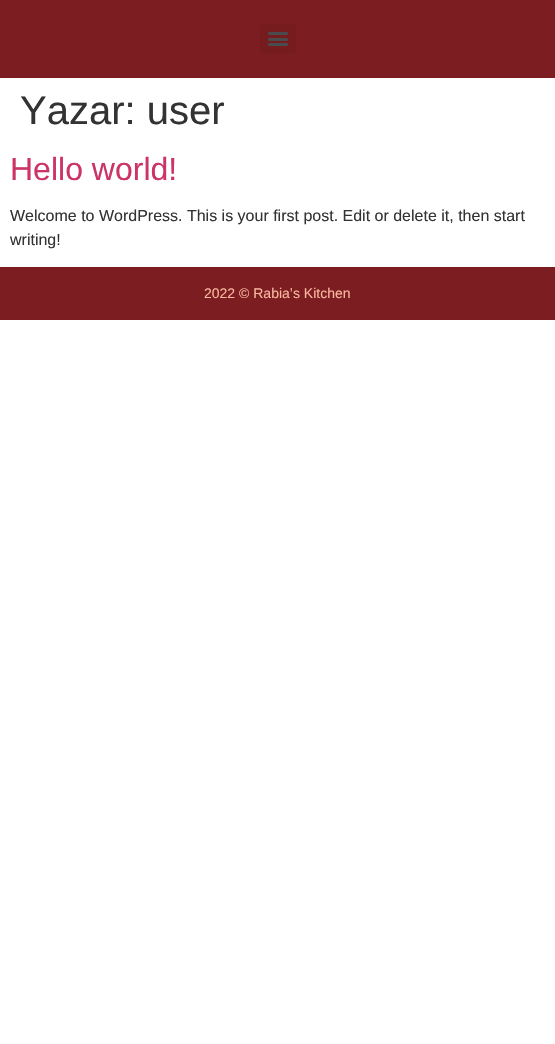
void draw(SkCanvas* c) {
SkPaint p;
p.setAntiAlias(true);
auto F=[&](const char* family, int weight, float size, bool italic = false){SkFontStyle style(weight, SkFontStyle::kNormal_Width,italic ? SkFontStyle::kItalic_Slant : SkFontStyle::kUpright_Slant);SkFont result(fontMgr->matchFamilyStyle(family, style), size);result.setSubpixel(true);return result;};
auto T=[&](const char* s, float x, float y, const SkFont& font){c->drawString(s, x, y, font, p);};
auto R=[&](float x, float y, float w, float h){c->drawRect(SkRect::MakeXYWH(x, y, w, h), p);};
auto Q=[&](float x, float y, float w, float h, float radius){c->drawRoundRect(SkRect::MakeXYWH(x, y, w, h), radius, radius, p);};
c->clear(0xffffffff);
p.setColor(0xff7c1d21);
R(0,0,555,78);
p.setColor(0xff761c1f);
Q(260,24,36,30,3);
p.setColor(0xff494c4f);
Q(268,38,20,3,1.5);
Q(268,32,20,3,1.5);
Q(268,43,20,3,1.5);
auto f1 = F("Liberation Sans",400,40);
p.setColor(0xff333333);
T("Yazar: user",20,124,f1);
auto f2 = F("Liberation Sans",400,32);
p.setColor(0xffcc3366);
T("Hello world!",10,180,f2);
auto f3 = F("Liberation Sans",400,16);
p.setColor(0xff333333);
T("Welcome to WordPress. This is your first post. Edit or delete it, then start",10,221,f3);
T("writing!",10,245,f3);
p.setColor(0xff7c1d21);
R(0,267,555,53);
auto f4 = F("Liberation Sans",400,14);
p.setColor(0xfffab89f);
T("2022 © Rabia’s Kitchen",204,298,f4);
}
